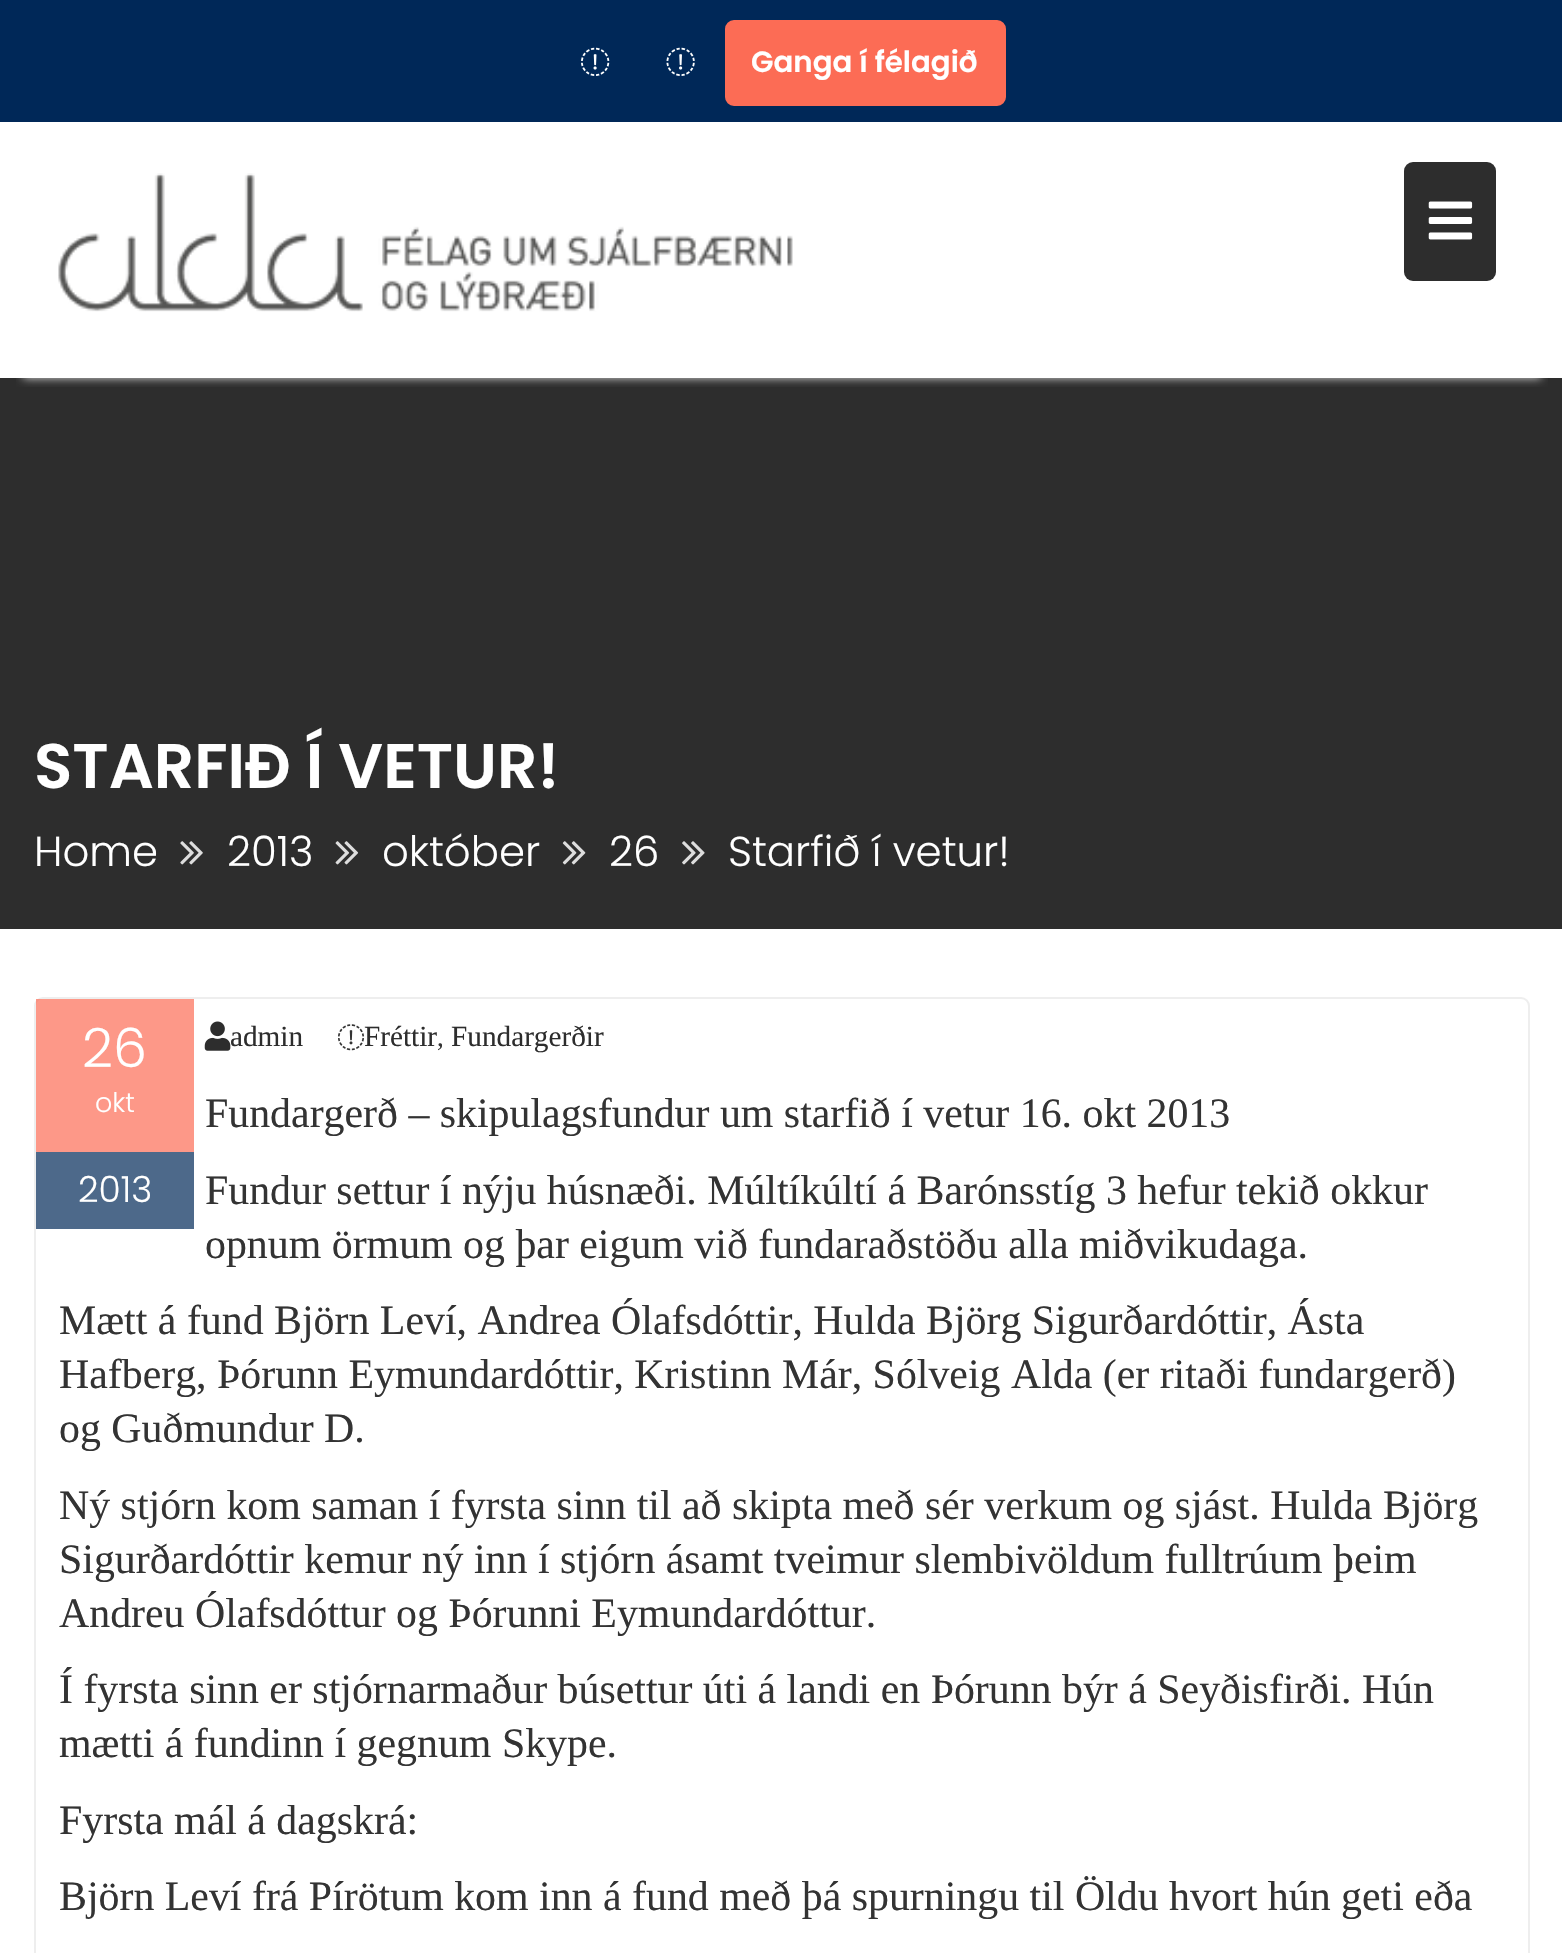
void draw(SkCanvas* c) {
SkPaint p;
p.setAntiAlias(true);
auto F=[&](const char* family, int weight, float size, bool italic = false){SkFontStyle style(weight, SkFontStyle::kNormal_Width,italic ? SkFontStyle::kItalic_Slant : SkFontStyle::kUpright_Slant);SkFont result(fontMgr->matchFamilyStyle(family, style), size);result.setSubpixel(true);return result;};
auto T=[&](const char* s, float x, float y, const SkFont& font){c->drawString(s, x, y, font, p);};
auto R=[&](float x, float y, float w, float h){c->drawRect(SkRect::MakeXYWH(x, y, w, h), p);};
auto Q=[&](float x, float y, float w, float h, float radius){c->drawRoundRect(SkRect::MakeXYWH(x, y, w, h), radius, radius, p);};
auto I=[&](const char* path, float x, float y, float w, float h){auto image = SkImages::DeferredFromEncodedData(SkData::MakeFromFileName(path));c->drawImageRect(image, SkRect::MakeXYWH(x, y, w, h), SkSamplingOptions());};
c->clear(0xffffffff);
p.setColor(0xff002858);
R(0,0,1562,122);
I("1.png",581,47,29,29);
I("2.png",666,47,29,29);
p.setColor(0xfffc6c55);
c->drawRoundRect(SkRect::MakeXYWH(727.5,22.5,276,81),6.5,6.5,p);
p.setStroke(true);
p.setStrokeWidth(5);
c->drawRoundRect(SkRect::MakeXYWH(727.5,22.5,276,81),6.5,6.5,p);
auto f1 = F("Poppins",600,29.25);
p.setStroke(false);
p.setColor(0xffffffff);
T("Ganga í félagið",751,72,f1);
p.setColor(0xff2d2d2d);
R(0,378,1562,551);
c->save();
c->clipRect(SkRect::MakeXYWH(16,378,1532,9));
p.setColor(0xe6eeeeee);
p.setMaskFilter(SkMaskFilter::MakeBlur(kNormal_SkBlurStyle, 4.5));
c->drawRect(SkRect::MakeXYWH(23,167,1518,211),p);
p.setMaskFilter(nullptr);
c->restore();
I("3.png",58,173,735,139);
p.setColor(0xff2d2d2d);
Q(1404,162,92,119,9);
I("4.png",1428,201,45,39);
auto f2 = F("Poppins",600,63);
p.setColor(0xffffffff);
T("STARFIÐ Í VETUR!",34,788,f2);
auto f3 = F("Poppins",300,41.85);
T("Home",34,866,f3);
I("5.png",180,841,23,24);
T("2013",227,866,f3);
I("6.png",335,841,24,24);
T("október",382,866,f3);
I("7.png",562,841,24,24);
T("26",609,866,f3);
I("8.png",682,841,23,24);
T("Starfið í vetur!",728,866,f3);
p.setStroke(true);
p.setStrokeWidth(2);
p.setColor(0xffeeeeee);
c->drawRoundRect(SkRect::MakeXYWH(35,998,1494,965),8,8,p);
I("9.png",204,1021,27,30);
auto f4 = F("Liberation Serif",400,29.25);
p.setStroke(false);
p.setColor(0xff2d2d2d);
T("admin",230,1046,f4);
I("10.png",338,1024,26,27);
T("Fréttir",364,1046,f4);
auto f5 = F("Liberation Serif",400,27);
p.setColor(0xff333333);
T(",",437,1046,f5);
p.setColor(0xff2d2d2d);
T("Fundargerðir",451,1046,f4);
auto f6 = F("Liberation Serif",400,41.85);
p.setColor(0xff333333);
T("Fundargerð – skipulagsfundur um starfið í vetur 16. okt 2013",205,1127,f6);
T("Fundur settur í nýju húsnæði. Múltíkúltí á Barónsstíg 3 hefur tekið okkur",205,1204,f6);
T("opnum örmum og þar eigum við fundaraðstöðu alla miðvikudaga.",205,1258,f6);
T("Mætt á fund Björn Leví, Andrea Ólafsdóttir, Hulda Björg Sigurðardóttir, Ásta",59,1334,f6);
T("Hafberg, Þórunn Eymundardóttir, Kristinn Már, Sólveig Alda (er ritaði fundargerð)",59,1388,f6);
T("og Guðmundur D.",59,1442,f6);
T("Ný stjórn kom saman í fyrsta sinn til að skipta með sér verkum og sjást. Hulda Björg",59,1519,f6);
T("Sigurðardóttir kemur ný inn í stjórn ásamt tveimur slembivöldum fulltrúum þeim",59,1573,f6);
T("Andreu Ólafsdóttur og Þórunni Eymundardóttur.",59,1627,f6);
T("Í fyrsta sinn er stjórnarmaður búsettur úti á landi en Þórunn býr á Seyðisfirði. Hún",59,1703,f6);
T("mætti á fundinn í gegnum Skype.",59,1757,f6);
T("Fyrsta mál á dagskrá:",59,1834,f6);
T("Björn Leví frá Pírötum kom inn á fund með þá spurningu til Öldu hvort hún geti eða",59,1910,f6);
p.setColor(0xb3fc6c55);
R(36,999,158,153);
auto f7 = F("Poppins",300,54);
p.setColor(0xffffffff);
T("26",82,1067,f7);
auto f8 = F("Poppins",300,27);
T("okt",95,1112,f8);
p.setColor(0xff4d698a);
R(36,1152,158,77);
auto f9 = F("Poppins",300,36);
p.setColor(0xffffffff);
T("2013",78,1202,f9);
}
